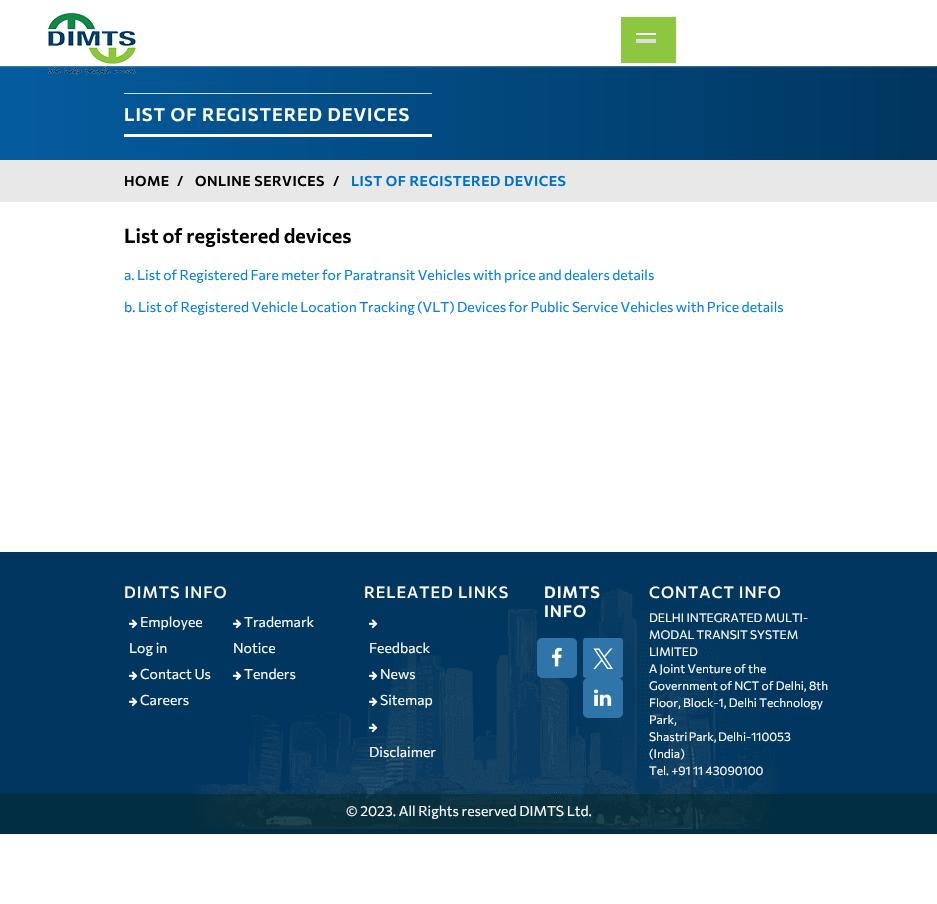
void draw(SkCanvas* c) {
SkPaint p;
p.setAntiAlias(true);
auto F=[&](const char* family, int weight, float size, bool italic = false){SkFontStyle style(weight, SkFontStyle::kNormal_Width,italic ? SkFontStyle::kItalic_Slant : SkFontStyle::kUpright_Slant);SkFont result(fontMgr->matchFamilyStyle(family, style), size);result.setSubpixel(true);return result;};
auto T=[&](const char* s, float x, float y, const SkFont& font){c->drawString(s, x, y, font, p);};
auto L=[&](const char* s, float x, float y, const SkFont& font, const SkPaint& ink, float letter, float word){std::vector<SkGlyphID> glyphs(font.countText(s, strlen(s), SkTextEncoding::kUTF8));std::vector<float> xs(glyphs.size());font.textToGlyphs(s, strlen(s), SkTextEncoding::kUTF8, glyphs);font.getXPos(glyphs, xs, x);float extra = 0;for (size_t i = 0; i < glyphs.size(); i++) {xs[i] += extra;extra += letter + word * (glyphs[i] == font.unicharToGlyph(' '));}c->drawTextBlob(SkTextBlob::MakeFromPosHGlyphs(glyphs, xs, y, font), 0, 0, ink);};
auto R=[&](float x, float y, float w, float h){c->drawRect(SkRect::MakeXYWH(x, y, w, h), p);};
auto Q=[&](float x, float y, float w, float h, float radius){c->drawRoundRect(SkRect::MakeXYWH(x, y, w, h), radius, radius, p);};
auto I=[&](const char* path, float x, float y, float w, float h){auto image = SkImages::DeferredFromEncodedData(SkData::MakeFromFileName(path));c->drawImageRect(image, SkRect::MakeXYWH(x, y, w, h), SkSamplingOptions());};
c->clear(0xffffffff);
{
const SkColor colors[] = {0xff045c9f,0xff00365f};
const float stops[] = {0,1};
const SkPoint ends[] = {{0,80}, {937,80}};
p.setShader(SkGradientShader::MakeLinear(ends, colors, stops, 2, SkTileMode::kClamp));
p.setAlpha(255);
}
R(0,66,937,94);
p.setShader(nullptr);
p.setColor(0xffbdbdbd);
p.setMaskFilter(SkMaskFilter::MakeBlur(kNormal_SkBlurStyle, 1));
c->drawRect(SkRect::MakeXYWH(0,0,937,66),p);
p.setMaskFilter(nullptr);
p.setColor(0xffffffff);
R(0,0,937,66);
I("1.png",48,13,88,63);
p.setColor(0xff8dc63f);
R(621,17,55,46);
p.setColor(0xffffffff);
R(636,33,20,2);
p.setColor(0xffdddddd);
R(636,39,20,4);
{
const SkColor colors[] = {0xffcddeec,0xffccd7df};
const float stops[] = {0,1};
const SkPoint ends[] = {{0,80}, {937,80}};
p.setShader(SkGradientShader::MakeLinear(ends, colors, stops, 2, SkTileMode::kClamp));
p.setAlpha(255);
}
R(124,93,308,1);
p.setShader(nullptr);
p.setColor(0xffffffff);
R(124,134,308,3);
auto f1 = F("Commissioner",600,18);
L("LIST OF REGISTERED DEVICES",124,121,f1,p,1,0);
p.setColor(0xffe8e8e8);
R(0,160,937,42);
auto f2 = F("Commissioner",600,14);
p.setColor(0xff000000);
L("HOME",124,186,f2,p,.5,0);
L("/",177,186,f2,p,.5,0);
L("ONLINE SERVICES",195,186,f2,p,.5,0);
L("/",333,186,f2,p,.5,0);
p.setColor(0xff0070c6);
L("LIST OF REGISTERED DEVICES",351,186,f2,p,.5,0);
auto f3 = F("Commissioner",600,20);
p.setColor(0xff000000);
T("List of registered devices",124,243,f3);
auto f4 = F("Commissioner",400,14);
p.setColor(0xff007bff);
L("a. List of Registered Fare meter for Paratransit Vehicles with price and dealers details",124,280,f4,p,0,-.25);
L("b. List of Registered Vehicle Location Tracking (VLT) Devices for Public Service Vehicles with Price details",124,312,f4,p,0,-.25);
p.setColor(0xff00365f);
R(0,552,937,282);
I("2.png",192,588,589,241);
auto f5 = F("Commissioner",500,16);
p.setColor(0xffffffff);
L("DIMTS INFO",124,598,f5,p,1,0);
I("3.png",129,619,9,10);
T("Employee",140,627,f4);
T("Log in",129,653,f4);
I("3.png",233,619,9,10);
T("Trademark",244,627,f4);
T("Notice",233,653,f4);
I("3.png",129,671,9,10);
T("Contact Us",140,679,f4);
I("3.png",233,671,9,10);
T("Tenders",244,679,f4);
I("3.png",129,697,9,10);
T("Careers",140,705,f4);
L("RELEATED LINKS",364,598,f5,p,1,0);
I("3.png",369,619,9,10);
T("Feedback",369,653,f4);
I("3.png",369,671,9,10);
T("News",380,679,f4);
I("4.png",369,697,9,10);
T("Sitemap",380,705,f4);
I("5.png",369,723,9,10);
T("Disclaimer",369,757,f4);
auto f6 = F("Commissioner",600,16);
L("DIMTS",544,598,f6,p,1,0);
L("INFO",544,617,f6,p,1,0);
p.setColor(0xff3075aa);
Q(537,638,40,40,5);
I("6.png",552,647,10,20);
Q(583,638,40,40,3);
I("7.png",593,648,20,21);
Q(583,678,40,40,5);
I("8.png",594,689,18,17);
p.setColor(0xffffffff);
L("CONTACT INFO",649,598,f5,p,1,0);
auto f7 = F("Commissioner",400,12);
T("DELHI INTEGRATED MULTI-",649,622,f7);
T("MODAL TRANSIT SYSTEM",649,639,f7);
T("LIMITED",649,656,f7);
T("A Joint Venture of the",649,673,f7);
T("Government of NCT of Delhi, 8th",649,690,f7);
T("Floor, Block-1, Delhi Technology",649,707,f7);
T("Park,",649,724,f7);
L("Shastri Park, Delhi-110053",649,741,f7,p,0,-1);
T("(India)",649,758,f7);
T("Tel. +91 11 43090100",649,775,f7);
p.setColor(0x54041a00);
R(0,794,937,40);
p.setColor(0xffffffff);
T("© 2023. All Rights reserved DIMTS Ltd.",346,816,f4);
}
